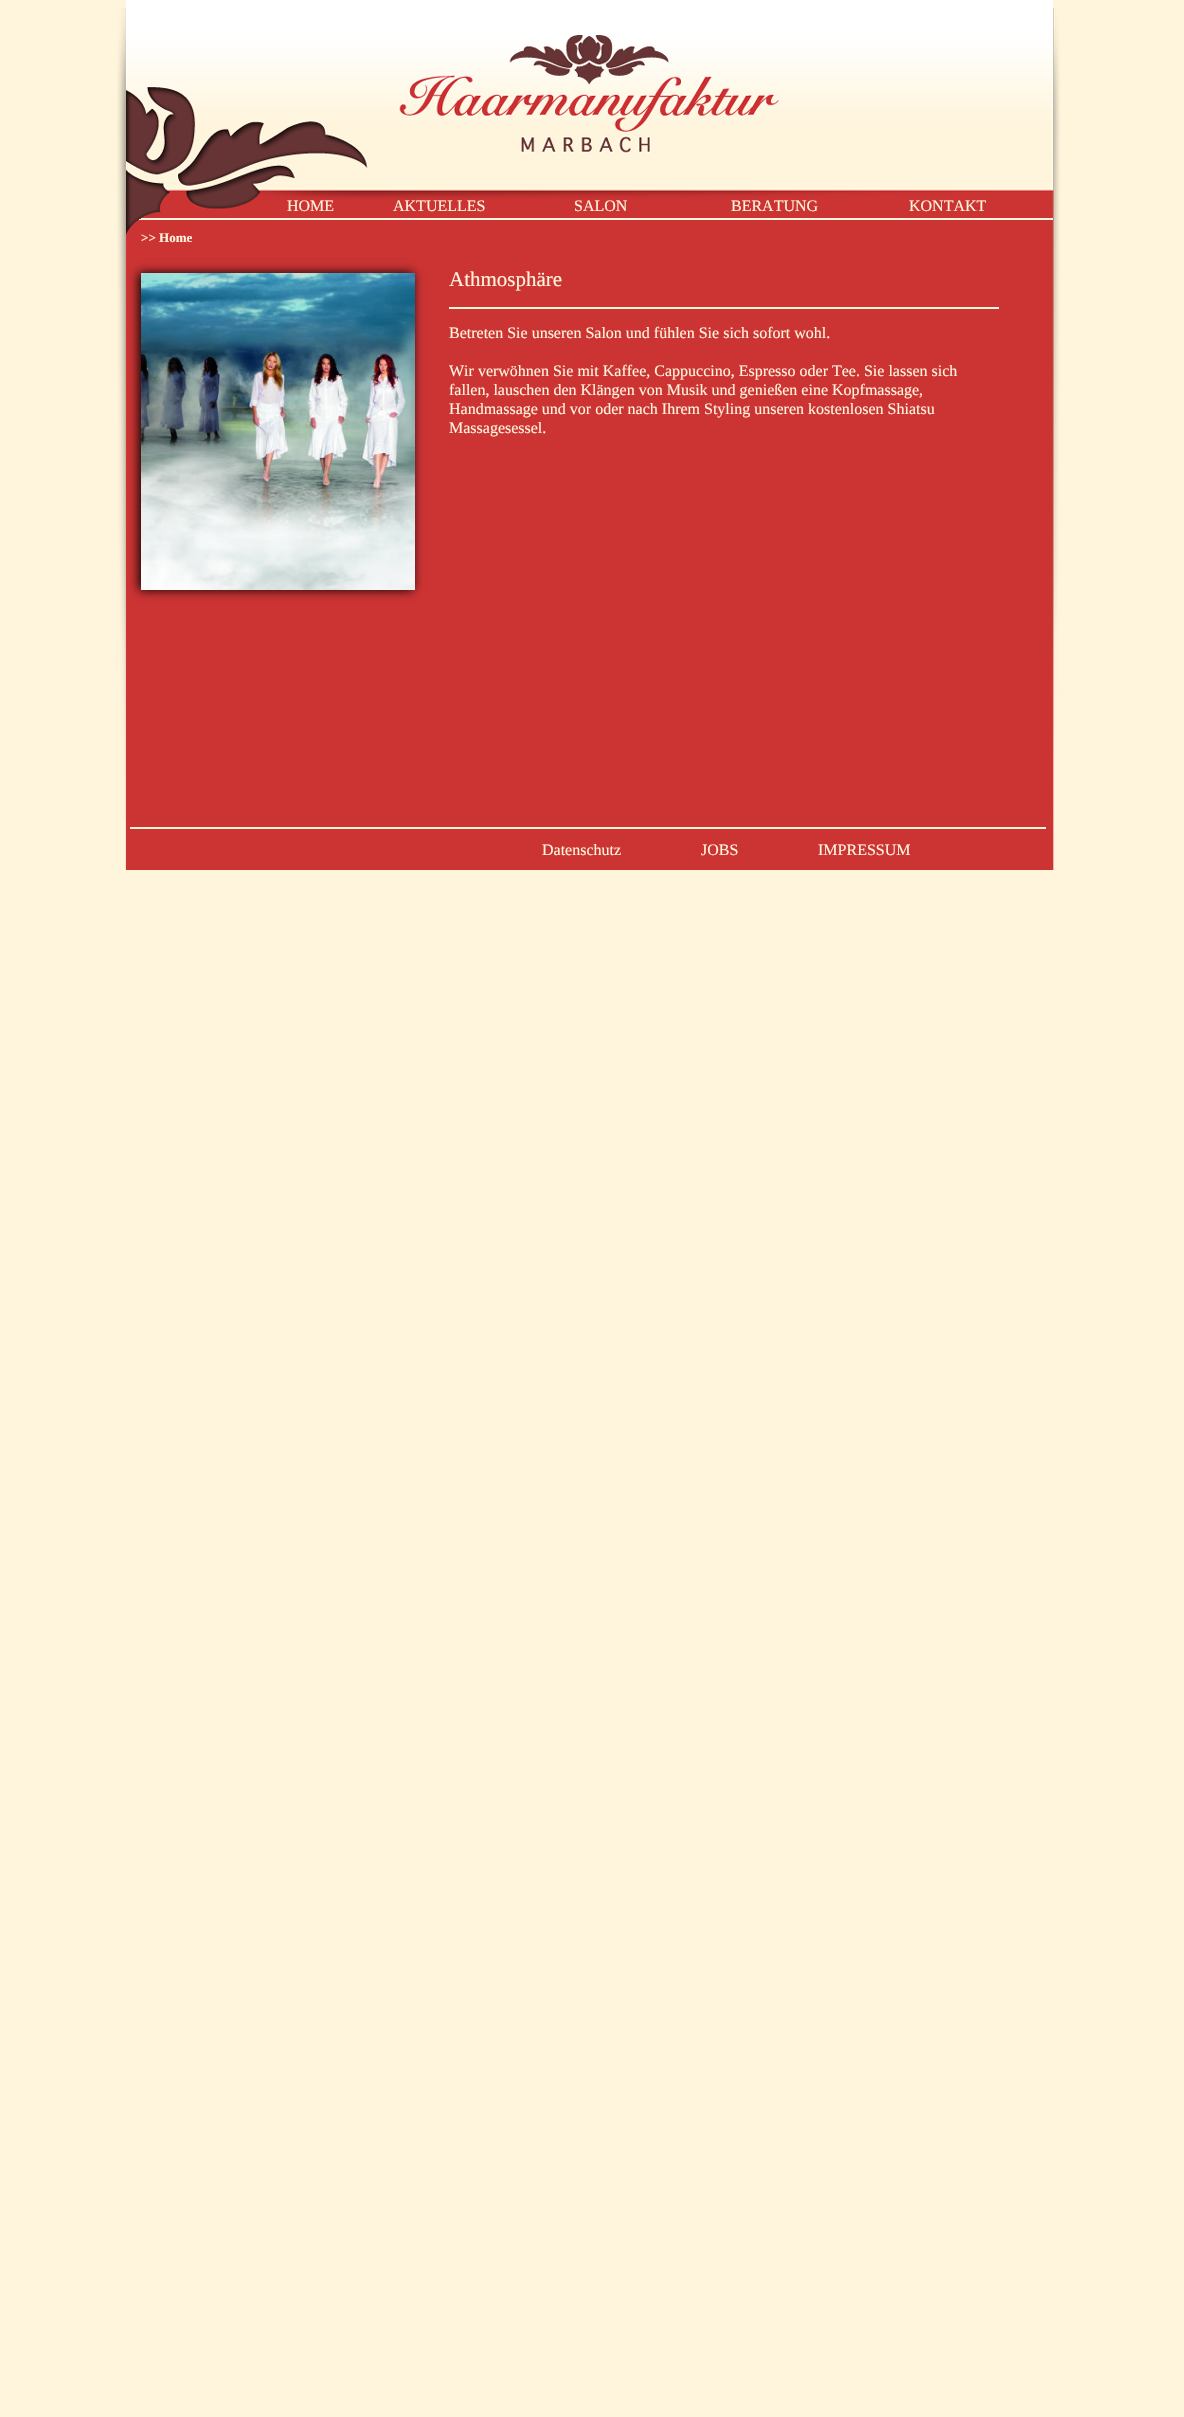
void draw(SkCanvas* c) {
SkPaint p;
p.setAntiAlias(true);
auto F=[&](const char* family, int weight, float size, bool italic = false){SkFontStyle style(weight, SkFontStyle::kNormal_Width,italic ? SkFontStyle::kItalic_Slant : SkFontStyle::kUpright_Slant);SkFont result(fontMgr->matchFamilyStyle(family, style), size);result.setSubpixel(true);return result;};
auto T=[&](const char* s, float x, float y, const SkFont& font){c->drawString(s, x, y, font, p);};
auto R=[&](float x, float y, float w, float h){c->drawRect(SkRect::MakeXYWH(x, y, w, h), p);};
auto I=[&](const char* path, float x, float y, float w, float h){auto image = SkImages::DeferredFromEncodedData(SkData::MakeFromFileName(path));c->drawImageRect(image, SkRect::MakeXYWH(x, y, w, h), SkSamplingOptions());};
c->clear(0xfffff5dd);
I("1.png",117,0,943,870);
auto f1 = F("Liberation Serif",400,16);
p.setColor(0xfffff5dd);
T("HOME",287,211,f1);
T("AKTUELLES",393,211,f1);
T("SALON",574,211,f1);
T("BERATUNG",731,211,f1);
T("KONTAKT",909,211,f1);
R(141,218,912,1);
R(139,219,914,1);
auto f2 = F("Liberation Serif",700,13);
T(">> Home",141,242,f2);
p.setColor(0xff000000);
p.setMaskFilter(SkMaskFilter::MakeBlur(kNormal_SkBlurStyle, 5));
c->drawRect(SkRect::MakeXYWH(139,273,274,317),p);
p.setMaskFilter(nullptr);
I("2.png",141,273,274,317);
auto f3 = F("Liberation Serif",400,21);
p.setColor(0xfffff5dd);
T("Athmosphäre",449,286,f3);
R(449,307,550,2);
T("Betreten Sie unseren Salon und fühlen Sie sich sofort wohl.",449,338,f1);
T("Wir verwöhnen Sie mit Kaffee, Cappuccino, Espresso oder Tee. Sie lassen sich",449,376,f1);
T("fallen, lauschen den Klängen von Musik und genießen eine Kopfmassage,",449,395,f1);
T("Handmassage und vor oder nach Ihrem Styling unseren kostenlosen Shiatsu",449,414,f1);
T("Massagesessel.",449,433,f1);
R(130,827,916,2);
T("Datenschutz",542,855,f1);
T("JOBS",701,855,f1);
T("IMPRESSUM",818,855,f1);
}
